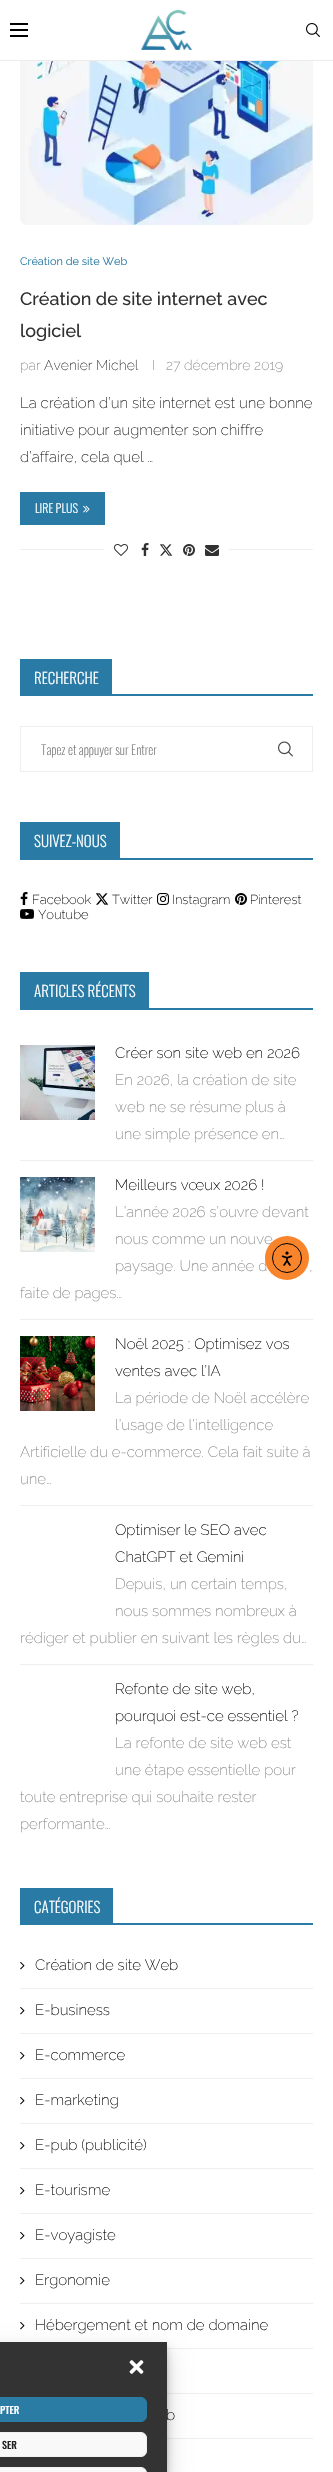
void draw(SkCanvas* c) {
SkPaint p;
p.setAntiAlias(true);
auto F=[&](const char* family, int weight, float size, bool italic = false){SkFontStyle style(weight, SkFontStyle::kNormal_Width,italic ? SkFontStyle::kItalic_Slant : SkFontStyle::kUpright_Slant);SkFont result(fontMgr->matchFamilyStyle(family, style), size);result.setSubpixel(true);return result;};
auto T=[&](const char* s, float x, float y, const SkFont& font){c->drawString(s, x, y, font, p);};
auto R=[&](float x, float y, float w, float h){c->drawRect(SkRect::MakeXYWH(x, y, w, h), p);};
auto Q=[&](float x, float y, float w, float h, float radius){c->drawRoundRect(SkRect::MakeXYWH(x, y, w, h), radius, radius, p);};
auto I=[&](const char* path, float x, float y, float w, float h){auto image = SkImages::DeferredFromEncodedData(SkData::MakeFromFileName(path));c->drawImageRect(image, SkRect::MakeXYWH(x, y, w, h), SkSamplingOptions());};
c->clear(0xffffffff);
p.setColor(0xfff5f5f5);
Q(20,-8,293,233,8);
p.setColor(0xffffffff);
R(20,0,293,60);
p.setColor(0xffececec);
R(0,60,333,1);
p.setColor(0xff000000);
R(10,23,18,2);
R(10,29,18,2);
R(10,35,18,2);
I("1.png",140,10,53,40);
I("2.png",306,23,14,14);
I("3.png",25,61,288,164);
auto f1 = F("Raleway",400,11);
p.setColor(0xff297ba5);
T("Création de site Web",20,265,f1);
auto f2 = F("Raleway",500,18);
p.setColor(0xff313131);
T("Création de site internet avec",20,305,f2);
T("logiciel",20,337,f2);
auto f3 = F("Raleway",200,14);
p.setColor(0xff888888);
T("par",20,370,f3);
p.setColor(0xff313131);
T("Avenier Michel",44,370,f3);
p.setColor(0xffb8b8b8);
R(153,360,1,10);
p.setColor(0xff888888);
T("27 décembre 2019",166,370,f3);
auto f4 = F("Raleway",200,15);
p.setColor(0xff1a1a1a);
T("La création d’un site internet est une bonne",20,408,f4);
T("initiative pour augmenter son chiffre",20,435,f4);
T("d’affaire, cela quel …",20,462,f4);
p.setColor(0xff297ba5);
R(20,492,85,33);
auto f5 = F("Oswald",300,12);
p.setColor(0xffffffff);
T("LIRE PLUS",35,513,f5);
I("4.png",83,505,7,8);
p.setColor(0xffeeeeee);
R(20,549,293,1);
p.setColor(0xffffffff);
R(104,549,125,1);
I("5.png",114,544,14,12);
I("6.png",141,543,8,13);
I("7.png",159,544,14,12);
I("8.png",183,544,12,12);
I("9.png",205,545,14,11);
p.setColor(0xff297ba5);
R(20,694,293,2);
R(22,660,89,34);
R(20,659,92,1);
R(111,659,1,37);
R(20,659,2,37);
auto f6 = F("Oswald",300,15);
p.setColor(0xffffffff);
T("RECHERCHE",34,684,f6);
p.setStroke(true);
p.setStrokeWidth(1);
p.setColor(0xffeeeeee);
c->drawRect(SkRect::MakeXYWH(20.5,726.5,292,45),p);
auto f7 = F("Oswald",200,13);
p.setStroke(false);
p.setColor(0xff757575);
T("Tapez et appuyer sur Entrer",41,755,f7);
I("10.png",278,741,15,16);
p.setColor(0xff297ba5);
R(20,858,293,2);
R(22,823,97,35);
R(20,822,100,1);
R(119,822,1,38);
R(20,822,2,38);
p.setColor(0xffffffff);
T("SUIVEZ-NOUS",34,847,f6);
I("11.png",20,892,8,13);
auto f8 = F("Raleway",200,13);
p.setColor(0xff000000);
T("Facebook",32,904,f8);
I("12.png",95,893,14,12);
T("Twitter",112,904,f8);
I("13.png",157,893,12,12);
T("Instagram",172,904,f8);
I("14.png",235,893,12,12);
T("Pinterest",250,904,f8);
I("15.png",20,909,14,10);
T("Youtube",38,919,f8);
p.setColor(0xff297ba5);
R(20,1008,293,2);
R(22,973,126,35);
R(20,972,129,1);
R(148,972,1,38);
R(20,972,2,38);
p.setColor(0xffffffff);
T("ARTICLES RÉCENTS",34,997,f6);
p.setColor(0xffeeeeee);
R(20,1160,293,1);
I("16.png",20,1045,75,75);
p.setColor(0xff000000);
T("Créer son site web en 2026",115,1058,f4);
p.setColor(0xff888888);
T("En 2026, la création de site",115,1085,f4);
T("web ne se résume plus à",115,1112,f4);
T("une simple présence en…",115,1139,f4);
p.setColor(0xffeeeeee);
R(20,1319,293,1);
I("17.png",20,1177,75,75);
p.setColor(0xff000000);
T("Meilleurs vœux 2026 !",115,1190,f4);
p.setColor(0xff888888);
T("L’année 2026 s’ouvre devant",115,1217,f4);
T("nous comme un nouve",115,1244,f4);
T("paysage. Une année d",115,1271,f4);
T(",",309,1271,f4);
T("faite de pages…",20,1298,f4);
p.setColor(0xffeeeeee);
R(20,1505,293,1);
I("18.png",20,1336,75,75);
p.setColor(0xff000000);
T("Noël 2025 : Optimisez vos",115,1349,f4);
T("ventes avec l’IA",115,1376,f4);
p.setColor(0xff888888);
T("La période de Noël accélère",115,1403,f4);
T("l’usage de l’intelligence",115,1430,f4);
T("Artificielle du e-commerce. Cela fait suite à",20,1457,f4);
T("une…",20,1484,f4);
p.setColor(0xffeeeeee);
R(20,1664,293,1);
p.setColor(0xff000000);
T("Optimiser le SEO avec",115,1535,f4);
T("ChatGPT et Gemini",115,1562,f4);
p.setColor(0xff888888);
T("Depuis, un certain temps,",115,1589,f4);
T("nous sommes nombreux à",115,1616,f4);
T("rédiger et publier en suivant les règles du…",20,1643,f4);
p.setColor(0xff000000);
T("Refonte de site web,",115,1694,f4);
T("pourquoi est-ce essentiel ?",115,1721,f4);
p.setColor(0xff888888);
T("La refonte de site web est",115,1748,f4);
T("une étape essentielle pour",115,1775,f4);
T("toute entreprise qui souhaite rester",20,1802,f4);
T("performante…",20,1829,f4);
p.setColor(0xff297ba5);
R(20,1923,293,2);
R(22,1889,90,34);
R(20,1888,93,1);
R(112,1888,1,37);
R(20,1888,2,37);
p.setColor(0xffffffff);
T("CATÉGORIES",34,1913,f6);
p.setColor(0xffeeeeee);
R(20,1988,293,1);
I("19.png",20,1962,5,8);
p.setColor(0xff000000);
T("Création de site Web",35,1970,f4);
p.setColor(0xffeeeeee);
R(20,2033,293,1);
I("19.png",20,2007,5,8);
p.setColor(0xff000000);
T("E-business",35,2015,f4);
p.setColor(0xffeeeeee);
R(20,2078,293,1);
I("19.png",20,2052,5,8);
p.setColor(0xff000000);
T("E-commerce",35,2060,f4);
p.setColor(0xffeeeeee);
R(20,2123,293,1);
I("19.png",20,2097,5,8);
p.setColor(0xff000000);
T("E-marketing",35,2105,f4);
p.setColor(0xffeeeeee);
R(20,2168,293,1);
I("19.png",20,2142,5,8);
p.setColor(0xff000000);
T("E-pub (publicité)",35,2150,f4);
p.setColor(0xffeeeeee);
R(20,2213,293,1);
I("19.png",20,2187,5,8);
p.setColor(0xff000000);
T("E-tourisme",35,2195,f4);
p.setColor(0xffeeeeee);
R(20,2258,293,1);
I("19.png",20,2232,5,8);
p.setColor(0xff000000);
T("E-voyagiste",35,2240,f4);
p.setColor(0xffeeeeee);
R(20,2303,293,1);
I("19.png",20,2277,5,8);
p.setColor(0xff000000);
T("Ergonomie",35,2285,f4);
p.setColor(0xffeeeeee);
R(167,2348,146,1);
I("19.png",20,2322,5,8);
p.setColor(0xff000000);
T("Hébergement et nom de domaine",35,2330,f4);
p.setColor(0xffeeeeee);
R(167,2393,146,1);
R(167,2438,146,1);
p.setColor(0xff000000);
T("b",166,2420,f4);
p.setColor(0xfff8842c);
c->drawCircle(287,1258,22,p);
p.setStroke(true);
p.setColor(0xff000000);
c->drawCircle(287,1258,14.5,p);
I("20.png",281,1251,12,15);
p.setStroke(false);
p.setColor(0x3b000000);
p.setMaskFilter(SkMaskFilter::MakeBlur(kNormal_SkBlurStyle, 3));
c->drawRect(SkRect::MakeXYWH(-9,2348,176,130),p);
p.setMaskFilter(nullptr);
p.setColor(0x30000000);
p.setMaskFilter(SkMaskFilter::MakeBlur(kNormal_SkBlurStyle, 10));
c->drawRect(SkRect::MakeXYWH(-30,2352,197,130),p);
p.setMaskFilter(nullptr);
p.setColor(0xff333333);
R(0,2342,167,130);
I("21.png",129,2360,15,14);
p.setColor(0xff2b7ca5);
c->drawRoundRect(SkRect::MakeXYWH(-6.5,2397.5,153,24),5.5,5.5,p);
p.setStroke(true);
c->drawRoundRect(SkRect::MakeXYWH(-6.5,2397.5,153,24),5.5,5.5,p);
auto f9 = F("Oswald",500,10);
p.setStroke(false);
p.setColor(0xffffffff);
T("PTER",0,2414,f9);
p.setColor(0xfff9f9f9);
c->drawRoundRect(SkRect::MakeXYWH(-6.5,2432.5,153,24),5.5,5.5,p);
p.setStroke(true);
p.setColor(0xfff2f2f2);
c->drawRoundRect(SkRect::MakeXYWH(-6.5,2432.5,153,24),5.5,5.5,p);
p.setStroke(false);
p.setColor(0xff222222);
T("SER",2,2449,f9);
p.setColor(0xfff9f9f9);
c->drawRoundRect(SkRect::MakeXYWH(-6.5,2467.5,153,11),5.5,5.5,p);
p.setStroke(true);
p.setColor(0xfff2f2f2);
c->drawRoundRect(SkRect::MakeXYWH(-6.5,2467.5,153,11),5.5,5.5,p);
}
